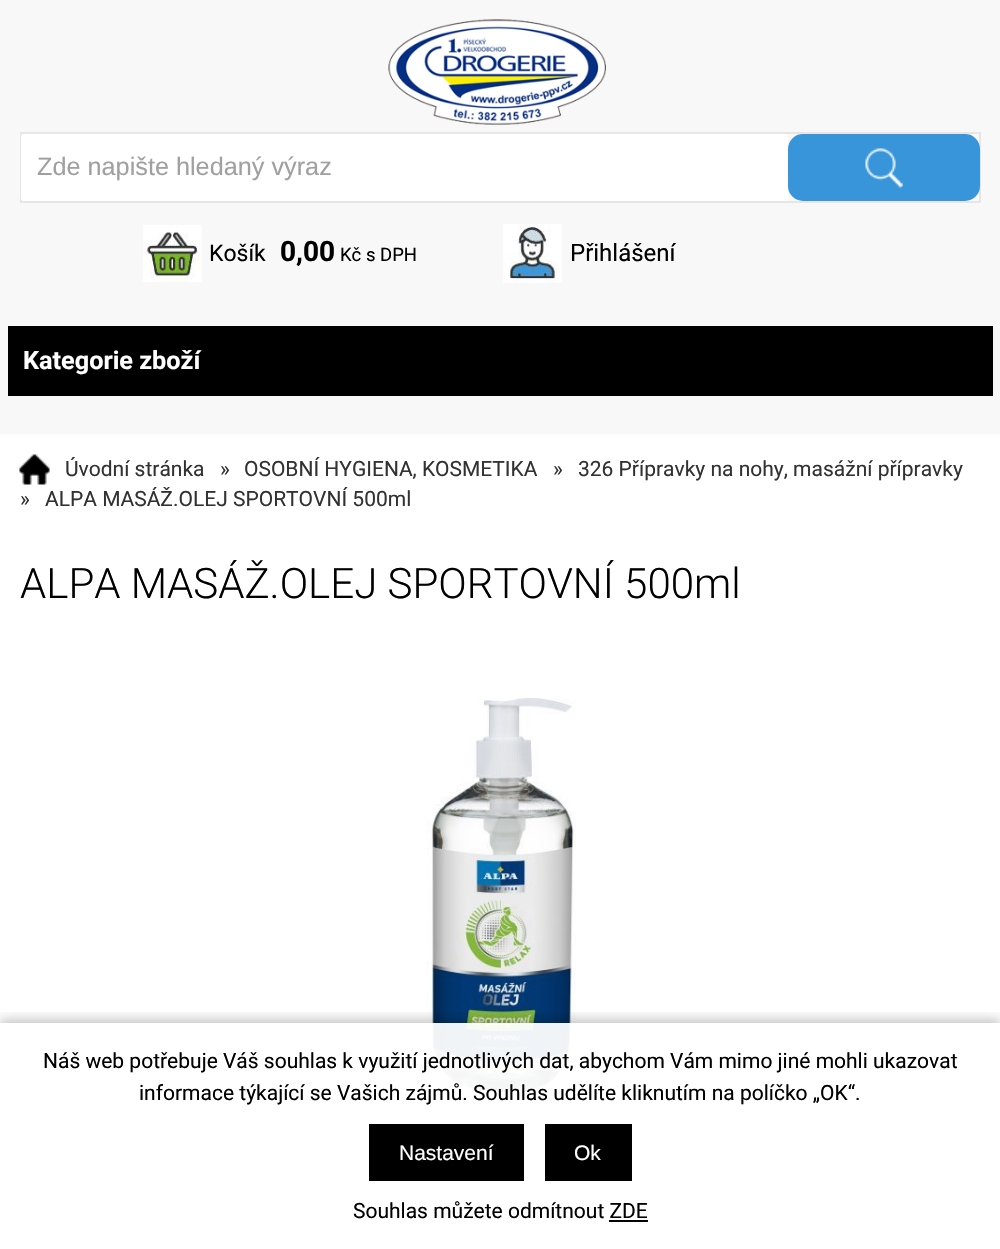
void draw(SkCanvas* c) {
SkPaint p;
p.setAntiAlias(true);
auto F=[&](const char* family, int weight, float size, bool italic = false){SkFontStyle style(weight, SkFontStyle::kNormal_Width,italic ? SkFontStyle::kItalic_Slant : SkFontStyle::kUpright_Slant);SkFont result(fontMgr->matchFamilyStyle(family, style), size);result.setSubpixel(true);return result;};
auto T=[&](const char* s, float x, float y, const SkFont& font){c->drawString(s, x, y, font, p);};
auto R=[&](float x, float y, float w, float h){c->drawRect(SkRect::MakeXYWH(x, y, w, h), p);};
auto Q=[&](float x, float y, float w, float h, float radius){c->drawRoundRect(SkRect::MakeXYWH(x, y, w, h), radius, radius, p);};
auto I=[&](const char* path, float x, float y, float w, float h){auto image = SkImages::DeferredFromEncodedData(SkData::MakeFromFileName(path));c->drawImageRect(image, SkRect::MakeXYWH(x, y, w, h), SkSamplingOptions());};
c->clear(0xfff8f8f8);
I("1.png",388,19,218,106);
p.setStroke(true);
p.setStrokeWidth(2);
p.setColor(0xffe6e6e6);
c->drawRect(SkRect::MakeXYWH(21,133,959,69),p);
p.setStroke(false);
p.setColor(0xffffffff);
Q(21,134,767,67,3);
auto f1 = F("Liberation Sans",400,25.25);
p.setColor(0xffa0a0a0);
T("Zde napište hledaný výraz",37,175,f1);
p.setColor(0xff3895d9);
Q(788,134,192,67,15);
I("2.png",865,148,38,40);
I("3.png",143,225,59,57);
auto f2 = F("Roboto",400,23);
p.setColor(0xff000000);
T("Košík",209,261,f2);
auto f3 = F("Roboto",700,28);
T("0,00",280,261,f3);
auto f4 = F("Roboto",400,18.5);
T("Kč s DPH",340,261,f4);
I("4.png",503,224,59,59);
auto f5 = F("Roboto",400,24);
T("Přihlášení",570,261,f5);
R(8,326,985,70);
auto f6 = F("Roboto",700,25.25);
p.setColor(0xffffffff);
T("Kategorie zboží",23,369,f6);
R(0,434,1000,815);
I("5.png",19,454,31,31);
auto f7 = F("Roboto",400,21);
p.setColor(0xff323232);
T("Úvodní stránka",65,476,f7);
T("»",220,476,f7);
T("OSOBNÍ HYGIENA, KOSMETIKA",244,476,f7);
T("»",553,476,f7);
T("326 Přípravky na nohy, masážní přípravky",578,476,f7);
T("»",20,506,f7);
T("ALPA MASÁŽ.OLEJ SPORTOVNÍ 500ml",45,506,f7);
auto f8 = F("Roboto",300,42);
p.setColor(0xff000000);
T("ALPA MASÁŽ.OLEJ SPORTOVNÍ 500ml",20,598,f8);
I("6.png",426,698,150,398);
c->save();
c->clipRect(SkRect::MakeXYWH(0,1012,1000,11));
p.setColor(0x40000000);
p.setMaskFilter(SkMaskFilter::MakeBlur(kNormal_SkBlurStyle, 6));
c->drawRect(SkRect::MakeXYWH(0,1020,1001,227),p);
p.setMaskFilter(nullptr);
c->restore();
p.setColor(0xf0ffffff);
R(426,1023,150,73);
p.setColor(0xff000000);
T("Náš web potřebuje Váš souhlas k využití jednotlivých dat, abychom Vám mimo jiné mohli ukazovat",43,1068,f7);
T("informace týkající se Vašich zájmů. Souhlas udělíte kliknutím na políčko „OK“.",139,1100,f7);
R(369,1124,155,57);
auto f9 = F("Liberation Sans",400,21);
p.setColor(0xffffffff);
T("Nastavení",399,1160,f9);
p.setColor(0xff000000);
R(545,1124,87,57);
p.setColor(0xffffffff);
T("Ok",574,1160,f9);
p.setColor(0xff000000);
T("Souhlas můžete odmítnout ZDE",353,1218,f7);
R(609,1220,39,2);
}
